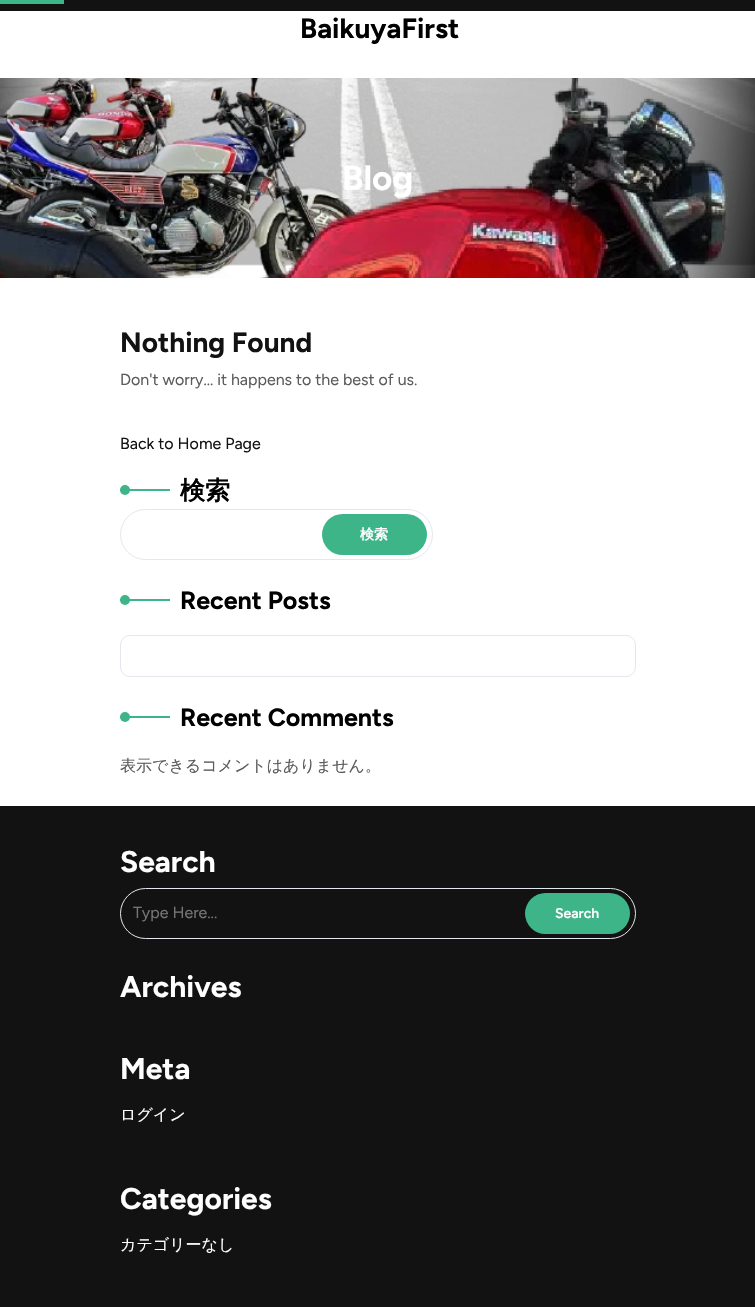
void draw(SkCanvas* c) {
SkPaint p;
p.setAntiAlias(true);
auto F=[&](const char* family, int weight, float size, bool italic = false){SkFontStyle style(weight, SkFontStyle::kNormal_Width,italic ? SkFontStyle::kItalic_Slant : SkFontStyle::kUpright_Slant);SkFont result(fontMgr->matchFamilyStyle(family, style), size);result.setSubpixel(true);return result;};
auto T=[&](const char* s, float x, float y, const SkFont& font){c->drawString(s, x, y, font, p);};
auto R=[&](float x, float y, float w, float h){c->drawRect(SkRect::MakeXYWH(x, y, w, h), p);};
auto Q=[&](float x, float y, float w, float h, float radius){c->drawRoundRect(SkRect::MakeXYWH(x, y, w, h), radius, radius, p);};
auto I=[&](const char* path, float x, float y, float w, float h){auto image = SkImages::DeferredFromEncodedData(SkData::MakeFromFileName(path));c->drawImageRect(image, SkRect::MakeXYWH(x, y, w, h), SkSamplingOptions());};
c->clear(0xffffffff);
p.setColor(0xff121212);
R(0,0,755,11);
auto f1 = F("Figtree",700,28);
p.setColor(0xff000000);
T("BaikuyaFirst",300,38,f1);
I("1.png",0,78,755,200);
auto f2 = F("Figtree",700,35);
p.setColor(0xffffffff);
T("Blog",342,190,f2);
p.setColor(0xff121212);
T("Nothing Found",120,352,f1);
auto f3 = F("Figtree",400,16);
p.setColor(0xff5b5b5b);
T("Don't worry… it happens to the best of us.",120,385,f3);
p.setColor(0xff121212);
T("Back to Home Page",120,449,f3);
p.setColor(0xff3eb489);
R(120,489,50,2);
c->drawCircle(125,490,5,p);
auto f4 = F("WenQuanYi Zen Hei",700,25);
p.setColor(0xff000000);
T("検索",180,499,f4);
p.setStroke(true);
p.setStrokeWidth(1);
p.setColor(0xffe4e7ee);
c->drawRoundRect(SkRect::MakeXYWH(120.5,509.5,312,50),25,25,p);
p.setStroke(false);
p.setColor(0xff3eb489);
Q(322,514,105,41,20.5);
auto f5 = F("WenQuanYi Zen Hei",700,14);
p.setColor(0xffffffff);
T("検索",360,539,f5);
p.setColor(0xff3eb489);
R(120,599,50,2);
c->drawCircle(125,600,5,p);
auto f6 = F("Figtree",700,25);
p.setColor(0xff000000);
T("Recent Posts",180,609,f6);
p.setStroke(true);
p.setColor(0xffe4e7ee);
c->drawRoundRect(SkRect::MakeXYWH(120.5,635.5,515,41),9.5,9.5,p);
p.setStroke(false);
p.setColor(0xff3eb489);
R(120,716,50,2);
c->drawCircle(125,717,5,p);
p.setColor(0xff000000);
T("Recent Comments",180,726,f6);
auto f7 = F("WenQuanYi Zen Hei",500,16);
p.setColor(0xff5b5b5b);
T("表示できるコメントはありません。",120,771,f7);
p.setColor(0xff3eb489);
R(0,0,64,4);
p.setColor(0xff121212);
R(0,806,755,501);
auto f8 = F("Figtree",700,30);
p.setColor(0xffffffff);
T("Search",120,872,f8);
p.setStroke(true);
p.setColor(0xffe4e7ee);
c->drawRoundRect(SkRect::MakeXYWH(120.5,888.5,515,50),25,25,p);
p.setStroke(false);
p.setColor(0xff757575);
T("Type Here...",133,918,f3);
p.setColor(0xff3eb489);
Q(525,893,105,41,20.5);
auto f9 = F("Figtree",600,14);
p.setColor(0xffffffff);
T("Search",555,918,f9);
T("Archives",120,997,f8);
T("Meta",120,1079,f8);
T("ログイン",120,1120,f7);
T("Categories",120,1209,f8);
T("カテゴリーなし",120,1250,f7);
}
